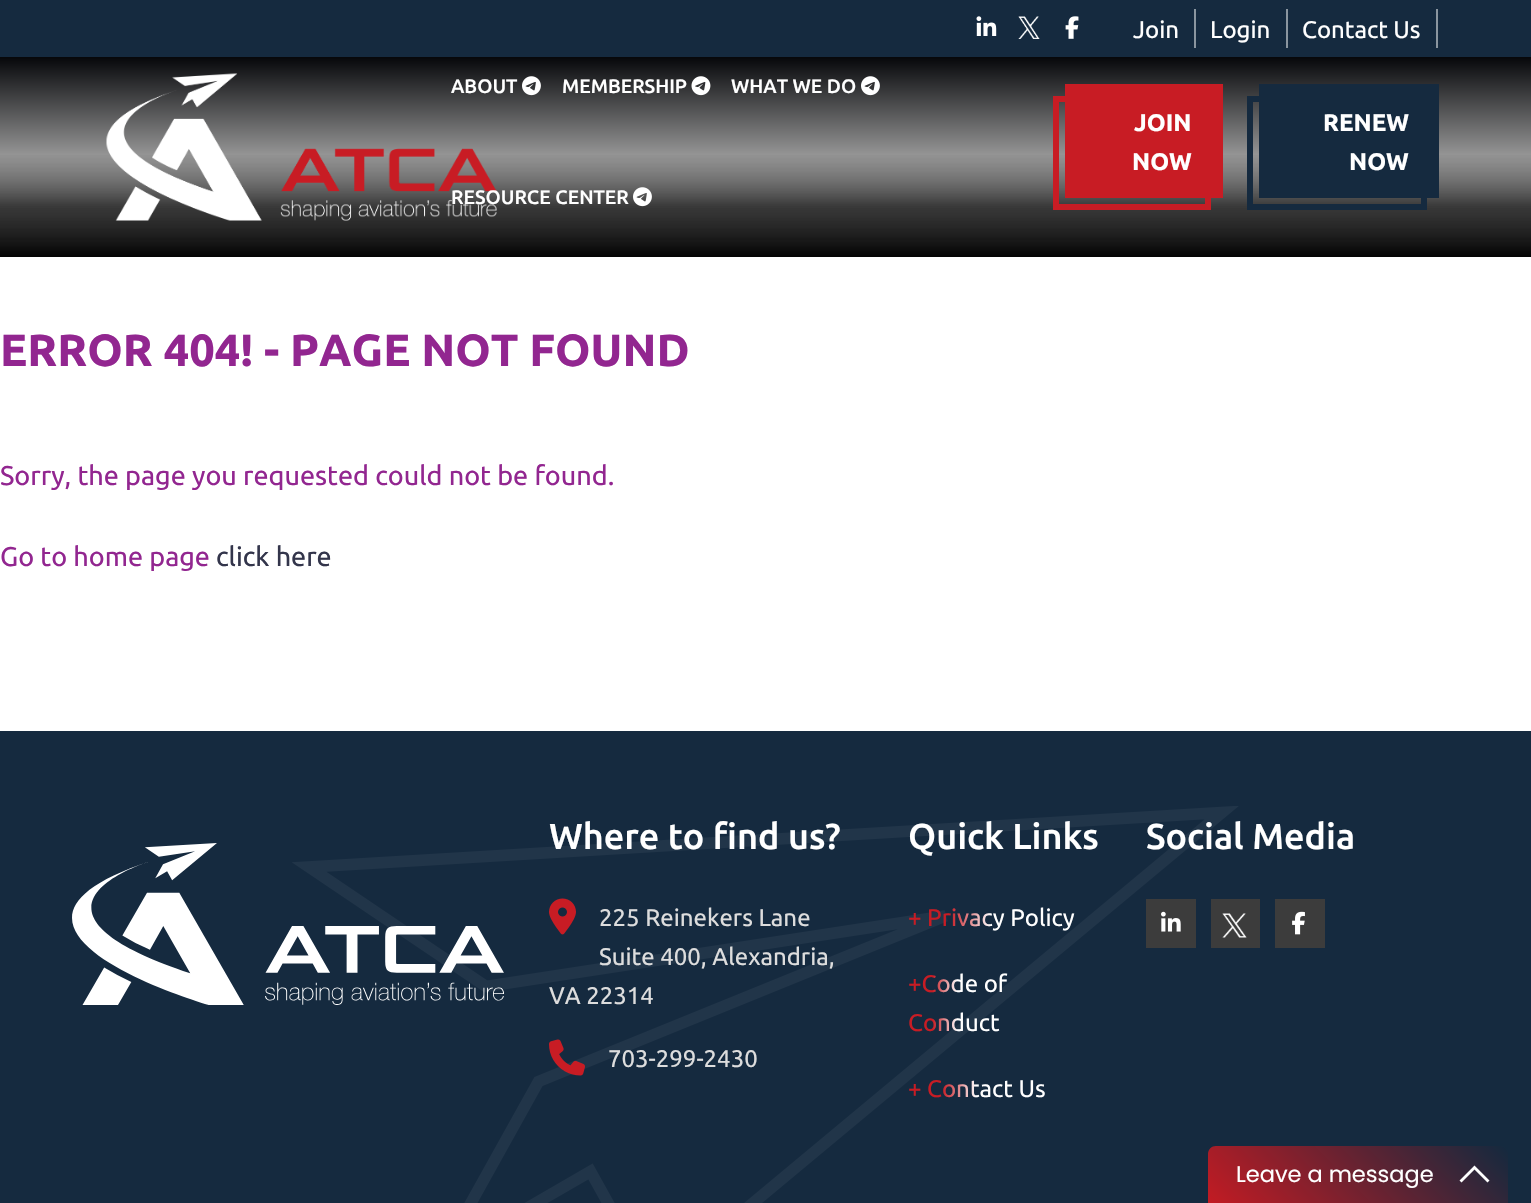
void draw(SkCanvas* c) {
SkPaint p;
p.setAntiAlias(true);
auto F=[&](const char* family, int weight, float size, bool italic = false){SkFontStyle style(weight, SkFontStyle::kNormal_Width,italic ? SkFontStyle::kItalic_Slant : SkFontStyle::kUpright_Slant);SkFont result(fontMgr->matchFamilyStyle(family, style), size);result.setSubpixel(true);return result;};
auto T=[&](const char* s, float x, float y, const SkFont& font){c->drawString(s, x, y, font, p);};
auto R=[&](float x, float y, float w, float h){c->drawRect(SkRect::MakeXYWH(x, y, w, h), p);};
auto I=[&](const char* path, float x, float y, float w, float h){auto image = SkImages::DeferredFromEncodedData(SkData::MakeFromFileName(path));c->drawImageRect(image, SkRect::MakeXYWH(x, y, w, h), SkSamplingOptions());};
auto P=[&](const char* data, bool evenOdd = false){SkPath result = *SkParsePath::FromSVGString(data);if (evenOdd) result.setFillType(SkPathFillType::kEvenOdd);return result;};
c->clear(0xffffffff);
p.setColor(0xff152a3f);
R(0,0,1531,57);
I("1.png",976,16,21,20);
I("2.png",1018,16,22,23);
I("3.png",1065,16,14,23);
p.setColor(0xff8a959f);
R(1194,9,2,39);
auto f1 = F("Ubuntu",400,24);
p.setColor(0xffffffff);
T("Join",1133,38,f1);
p.setColor(0xff8a959f);
R(1286,9,2,39);
p.setColor(0xffffffff);
T("Login",1210,38,f1);
p.setColor(0xff8a959f);
R(1436,9,2,39);
p.setColor(0xffffffff);
T("Contact Us",1302,38,f1);
{
const SkColor colors[] = {0xff06070a,0xff949494,0xffffffff};
const float stops[] = {0,.5,1};
const SkPoint ends[] = {{766,57}, {766,252}};
p.setShader(SkGradientShader::MakeLinear(ends, colors, stops, 3, SkTileMode::kClamp));
p.setAlpha(255);
}
R(0,57,1531,193);
{
const SkColor colors[] = {0x0000010a,0x000f0f0f,0xc70f0f0f,0xff030303};
const float stops[] = {0,.33,.67,1};
const SkPoint ends[] = {{766,103}, {766,257}};
p.setShader(SkGradientShader::MakeLinear(ends, colors, stops, 4, SkTileMode::kClamp));
p.setAlpha(255);
}
R(0,155,1531,102);
I("4.png",106,73,391,148);
auto f2 = F("Ubuntu",500,19.5);
p.setShader(nullptr);
p.setColor(0xffffffff);
T("ABOUT",451,93,f2);
I("5.png",522,76,19,20);
T("MEMBERSHIP",562,93,f2);
I("6.png",691,76,20,20);
T("WHAT WE DO",731,93,f2);
I("5.png",861,76,19,20);
T("RESOURCE CENTER",451,204,f2);
I("7.png",633,187,19,20);
p.setStroke(true);
p.setStrokeWidth(6);
p.setColor(0xffc81c24);
c->drawRect(SkRect::MakeXYWH(1056,99,152,108),p);
p.setStroke(false);
R(1065,84,158,114);
auto f3 = F("Ubuntu",700,24);
p.setColor(0xffffffff);
T("JOIN",1134,131,f3);
T("NOW",1132,170,f3);
p.setStroke(true);
p.setColor(0xff152a3f);
c->drawRect(SkRect::MakeXYWH(1250,99,174,108),p);
p.setStroke(false);
R(1259,84,180,114);
p.setColor(0xffffffff);
T("RENEW",1323,131,f3);
T("NOW",1349,170,f3);
auto f4 = F("Ubuntu",700,45);
p.setColor(0xff922690);
T("ERROR 404! - PAGE NOT FOUND",0,366,f4);
auto f5 = F("Ubuntu",400,27);
T("Sorry, the page you requested could not be found.",0,485,f5);
T("Go to home page",0,566,f5);
p.setColor(0xff33354b);
T("click here",216,566,f5);
p.setColor(0xff152a3f);
R(0,731,1531,472);
c->save();
c->clipRect(SkRect::MakeXYWH(291,806,950,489));
p.setStroke(true);
p.setStrokeWidth(11.5);
p.setColor(0xff213549);
c->drawPath(P("M654 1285.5l-63.5-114l-150.5 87l98.5-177l407-165.5l-459.5 70.5l-177-119.5l913-54.5z"),p);
c->restore();
auto f6 = F("Ubuntu",500,36);
p.setStroke(false);
p.setColor(0xffffffff);
T("Where to find us?",549,849,f6);
I("8.png",549,898,27,37);
p.setColor(0xffdddddd);
T("225 Reinekers Lane",599,926,f1);
T("Suite 400, Alexandria,",599,965,f1);
T("VA 22314",549,1004,f1);
I("9.png",549,1039,36,37);
T("703-299-2430",608,1067,f1);
p.setColor(0xffffffff);
T("Quick Links",908,849,f6);
{
const SkColor colors[] = {0xffc81c24,0xffc81c24,0xffffffff};
const float stops[] = {0,.25,.5};
const SkPoint ends[] = {{908,917}, {1074,917}};
p.setShader(SkGradientShader::MakeLinear(ends, colors, stops, 3, SkTileMode::kClamp));
p.setAlpha(255);
}
T("+ Privacy Policy",908,926,f1);
{
const SkColor colors[] = {0xffc81c24,0xffc81c24,0xffffffff};
const float stops[] = {0,.25,.5};
const SkPoint ends[] = {{908,1003}, {1007,1003}};
p.setShader(SkGradientShader::MakeLinear(ends, colors, stops, 3, SkTileMode::kClamp));
p.setAlpha(255);
}
T("+Code of",908,992,f1);
T("Conduct",908,1031,f1);
{
const SkColor colors[] = {0xffc81c24,0xffc81c24,0xffffffff};
const float stops[] = {0,.25,.5};
const SkPoint ends[] = {{908,1088}, {1045,1088}};
p.setShader(SkGradientShader::MakeLinear(ends, colors, stops, 3, SkTileMode::kClamp));
p.setAlpha(255);
}
T("+ Contact Us",908,1097,f1);
p.setShader(nullptr);
p.setColor(0xffffffff);
T("Social Media",1146,849,f6);
p.setColor(0xff3c3c3c);
R(1146,899,50,49);
I("10.png",1161,911,20,21);
R(1211,899,49,49);
I("11.png",1222,913,25,25);
R(1275,899,50,49);
I("12.png",1292,911,13,24);
I("13.png",72,843,432,162);
{
const SkColor colors[] = {0xffc31b23,0xff15293e,0xffc41b23};
const float stops[] = {0,.99,1};
const SkPoint ends[] = {{1268,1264}, {1447,1085}};
p.setShader(SkGradientShader::MakeLinear(ends, colors, stops, 3, SkTileMode::kClamp));
p.setAlpha(255);
}
c->drawPath(P("M1216 1146h284c4.5 0 8 3.5 8 8v49h-300v-49c0-4.5 3.5-8 8-8z"),p);
auto f7 = F("Poppins",400,22.5);
p.setShader(nullptr);
p.setColor(0xffffffff);
T("Leave a message",1236,1182,f7);
c->drawPath(P("M1474.5 1165.5l15 15l-2 2l-13-13l-13 13l-2-2z"),p);
}
